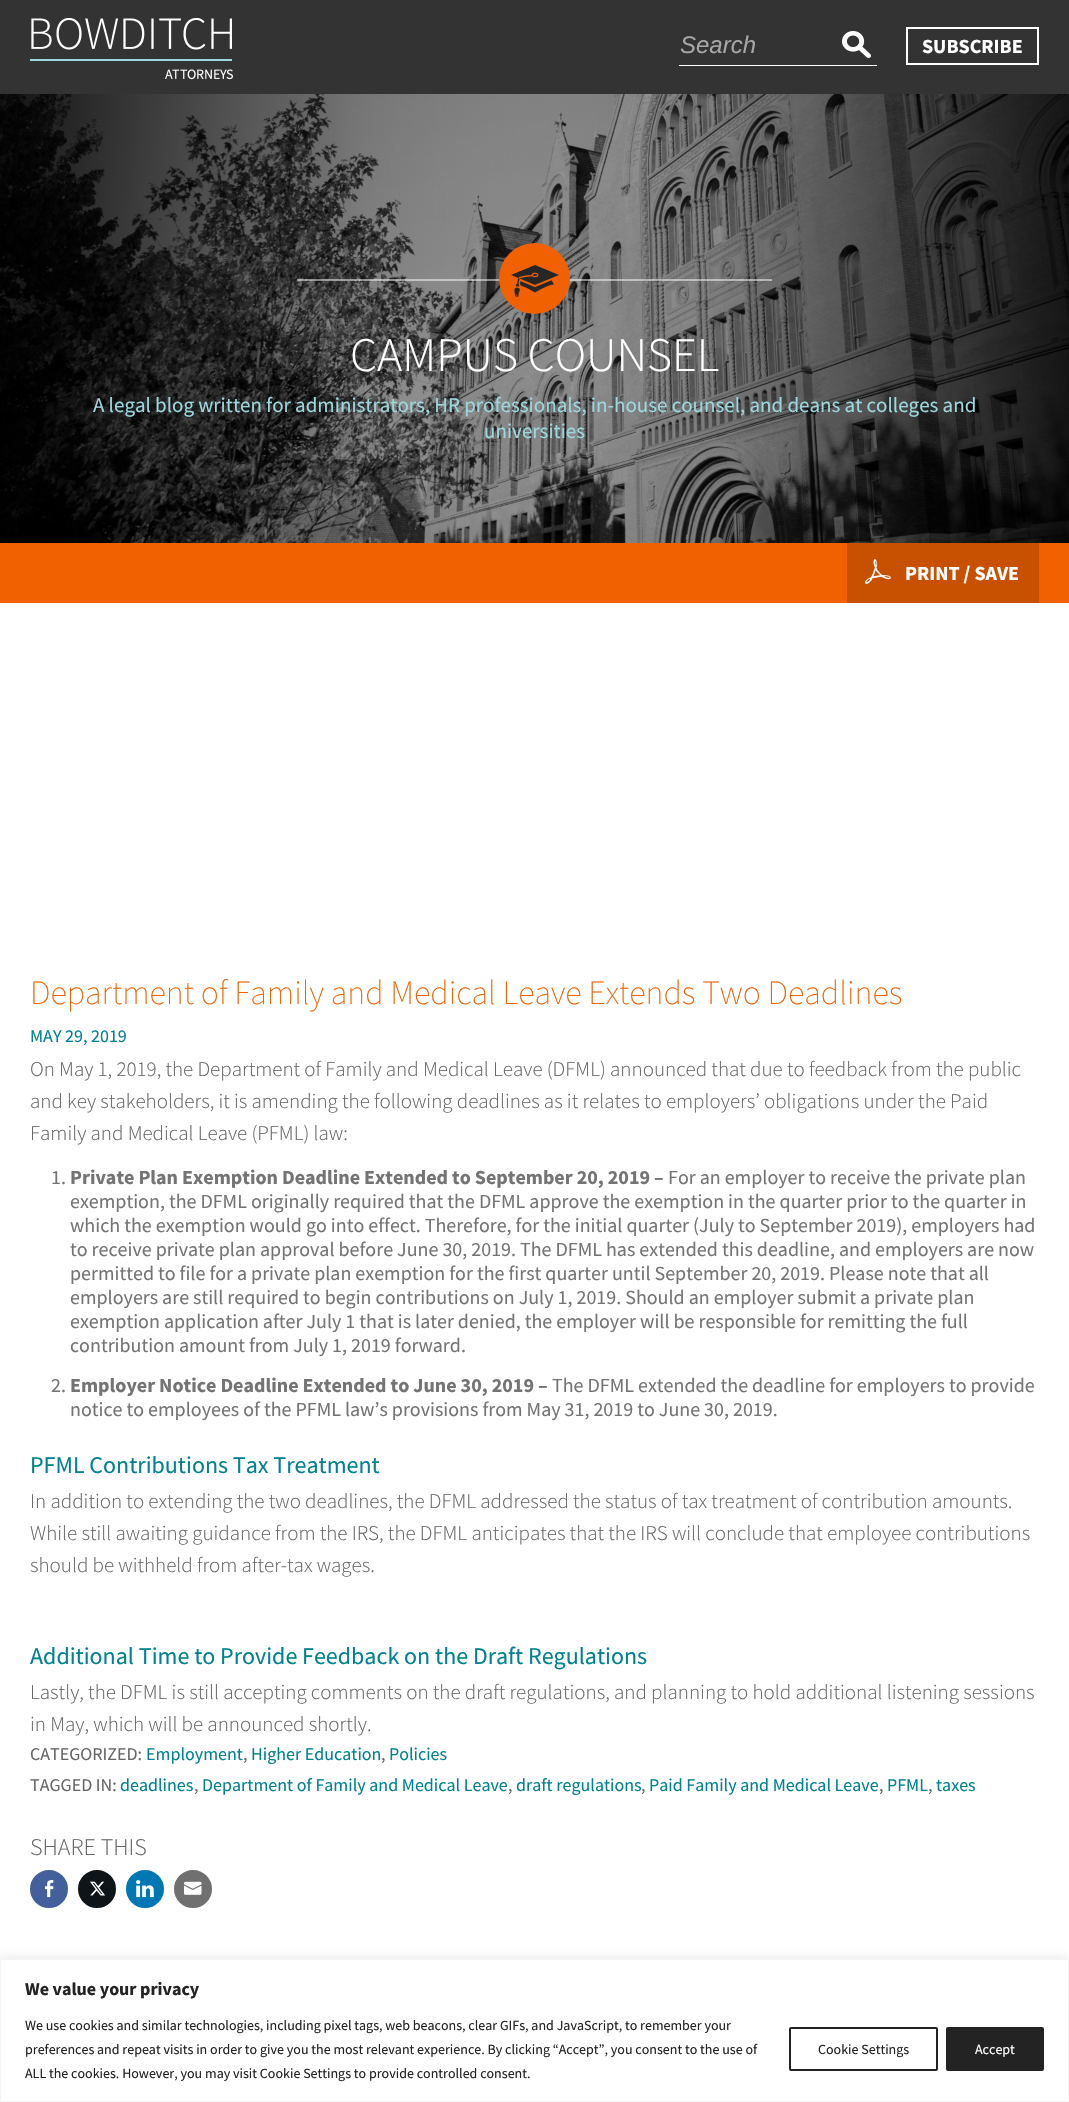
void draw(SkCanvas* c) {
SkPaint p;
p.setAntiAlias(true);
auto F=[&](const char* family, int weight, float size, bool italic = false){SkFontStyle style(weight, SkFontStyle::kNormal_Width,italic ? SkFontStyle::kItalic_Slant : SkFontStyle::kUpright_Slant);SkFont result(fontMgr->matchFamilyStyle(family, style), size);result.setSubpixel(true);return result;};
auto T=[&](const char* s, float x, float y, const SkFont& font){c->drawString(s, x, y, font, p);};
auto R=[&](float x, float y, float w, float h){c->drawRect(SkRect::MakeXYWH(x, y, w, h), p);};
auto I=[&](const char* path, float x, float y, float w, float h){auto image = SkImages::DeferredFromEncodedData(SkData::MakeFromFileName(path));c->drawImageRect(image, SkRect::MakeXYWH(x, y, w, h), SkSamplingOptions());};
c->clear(0xff333333);
I("1.png",30,18,203,62);
p.setColor(0xffffffff);
R(679,65,198,1);
auto f1 = F("Liberation Sans",400,24,true);
p.setColor(0xffa6a6a6);
T("Search",680,53,f1);
I("2.png",842,31,29,27);
p.setStroke(true);
p.setStrokeWidth(2);
p.setColor(0xffffffff);
c->drawRect(SkRect::MakeXYWH(907,28,131,36),p);
auto f2 = F("Source Sans Pro",700,20);
p.setStroke(false);
T("SUBSCRIBE",922,53,f2);
R(0,603,1069,1356);
I("3.png",0,94,1069,449);
p.setColor(0x80ffffff);
R(297,279,475,2);
p.setColor(0xfff26101);
c->drawCircle(534.5,278.5,35.5,p);
I("4.png",511,265,48,32);
auto f3 = F("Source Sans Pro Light",300,48);
p.setColor(0xffffffff);
T("CAMPUS COUNSEL",350,371,f3);
auto f4 = F("Source Sans Pro",400,21);
p.setColor(0xff9dd7de);
T("A legal blog written for administrators, HR professionals, in-house counsel, and deans at colleges and",93,412,f4);
T("universities",484,438,f4);
p.setColor(0xfff26101);
R(0,543,1069,60);
p.setColor(0xffc75001);
R(847,543,192,60);
I("5.png",865,559,26,25);
p.setColor(0xffffffff);
T("PRINT / SAVE",905,580,f2);
auto f5 = F("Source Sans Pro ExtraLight",200,34);
p.setColor(0xfff26101);
T("Department of Family and Medical Leave Extends Two Deadlines",30,1004,f5);
auto f6 = F("Source Sans Pro",400,18);
p.setColor(0xff008291);
T("MAY 29, 2019",30,1042,f6);
auto f7 = F("Source Sans Pro Light",300,21);
p.setColor(0xff666666);
T("On May 1, 2019, the Department of Family and Medical Leave (DFML) announced that due to feedback from the public",30,1076,f7);
T("and key stakeholders, it is amending the following deadlines as it relates to employers’ obligations under the Paid",30,1108,f7);
T("Family and Medical Leave (PFML) law:",30,1140,f7);
auto f8 = F("Source Sans Pro",400,20);
p.setColor(0xff747474);
T("1.",51,1184,f8);
T("Private Plan Exemption Deadline Extended to September 20, 2019 –",70,1184,f2);
T("For an employer to receive the private plan",668,1184,f8);
T("exemption, the DFML originally required that the DFML approve the exemption in the quarter prior to the quarter in",70,1208,f8);
T("which the exemption would go into effect. Therefore, for the initial quarter (July to September 2019), employers had",70,1232,f8);
T("to receive private plan approval before June 30, 2019. The DFML has extended this deadline, and employers are now",70,1256,f8);
T("permitted to file for a private plan exemption for the first quarter until September 20, 2019. Please note that all",70,1280,f8);
T("employers are still required to begin contributions on July 1, 2019. Should an employer submit a private plan",70,1304,f8);
T("exemption application after July 1 that is later denied, the employer will be responsible for remitting the full",70,1328,f8);
T("contribution amount from July 1, 2019 forward.",70,1352,f8);
T("2.",51,1392,f8);
T("Employer Notice Deadline Extended to June 30, 2019 –",70,1392,f2);
T("The DFML extended the deadline for employers to provide",552,1392,f8);
T("notice to employees of the PFML law’s provisions from May 31, 2019 to June 30, 2019.",70,1416,f8);
auto f9 = F("Source Sans Pro",400,24);
p.setColor(0xff008291);
T("PFML Contributions Tax Treatment",30,1473,f9);
p.setColor(0xff666666);
T("In addition to extending the two deadlines, the DFML addressed the status of tax treatment of contribution amounts.",30,1508,f7);
T("While still awaiting guidance from the IRS, the DFML anticipates that the IRS will conclude that employee contributions",30,1540,f7);
T("should be withheld from after-tax wages.",30,1572,f7);
p.setColor(0xff008291);
T("Additional Time to Provide Feedback on the Draft Regulations",30,1664,f9);
p.setColor(0xff666666);
T("Lastly, the DFML is still accepting comments on the draft regulations, and planning to hold additional listening sessions",30,1699,f7);
T("in May, which will be announced shortly.",30,1731,f7);
T("CATEGORIZED:",30,1760,f6);
p.setColor(0xff008291);
T("Employment",146,1760,f6);
p.setColor(0xff666666);
T(",",243,1760,f6);
p.setColor(0xff008291);
T("Higher Education",251,1760,f6);
p.setColor(0xff666666);
T(",",381,1760,f6);
p.setColor(0xff008291);
T("Policies",389,1760,f6);
p.setColor(0xff666666);
T("TAGGED IN:",30,1791,f6);
p.setColor(0xff008291);
T("deadlines",120,1791,f6);
p.setColor(0xff666666);
T(",",194,1791,f6);
p.setColor(0xff008291);
T("Department of Family and Medical Leave",202,1791,f6);
p.setColor(0xff666666);
T(",",508,1791,f6);
p.setColor(0xff008291);
T("draft regulations",516,1791,f6);
p.setColor(0xff666666);
T(",",641,1791,f6);
p.setColor(0xff008291);
T("Paid Family and Medical Leave",649,1791,f6);
p.setColor(0xff666666);
T(",",879,1791,f6);
p.setColor(0xff008291);
T("PFML",887,1791,f6);
p.setColor(0xff666666);
T(",",928,1791,f6);
p.setColor(0xff008291);
T("taxes",936,1791,f6);
auto f10 = F("Source Sans Pro Light",300,24);
p.setColor(0xff666666);
T("SHARE THIS",30,1855,f10);
p.setColor(0xff43609c);
c->drawCircle(49,1889,18,p);
p.setStroke(true);
c->drawCircle(49,1889,18,p);
I("6.png",45,1880,9,18);
p.setStroke(false);
p.setColor(0xff0f1419);
c->drawCircle(97,1889,18,p);
p.setStroke(true);
c->drawCircle(97,1889,18,p);
I("7.png",90,1881,15,15);
p.setStroke(false);
p.setColor(0xff0077b5);
c->drawCircle(145,1889,18,p);
p.setStroke(true);
c->drawCircle(145,1889,18,p);
I("8.png",136,1880,18,18);
p.setStroke(false);
p.setColor(0xff717070);
c->drawCircle(193,1889,18,p);
p.setStroke(true);
c->drawCircle(193,1889,18,p);
I("9.png",184,1881,18,14);
p.setStroke(false);
p.setColor(0x4dacabab);
p.setMaskFilter(SkMaskFilter::MakeBlur(kNormal_SkBlurStyle, 5));
c->drawRect(SkRect::MakeXYWH(0,1958,1069,143),p);
p.setMaskFilter(nullptr);
p.setColor(0xffffffff);
c->drawRect(SkRect::MakeXYWH(.5,1959.5,1068,142),p);
p.setStroke(true);
p.setStrokeWidth(1);
p.setColor(0xfff4f4f4);
c->drawRect(SkRect::MakeXYWH(.5,1959.5,1068,142),p);
auto f11 = F("Source Sans Pro",700,18);
p.setStroke(false);
p.setColor(0xff232323);
T("We value your privacy",25,1995,f11);
auto f12 = F("Source Sans Pro",400,14);
T("We use cookies and similar technologies, including pixel tags, web beacons, clear GIFs, and JavaScript, to remember your",25,2030,f12);
T("preferences and repeat visits in order to give you the most relevant experience. By clicking “Accept”, you consent to the use of",25,2054,f12);
T("ALL the cookies. However, you may visit Cookie Settings to provide controlled consent.",25,2078,f12);
p.setStroke(true);
p.setStrokeWidth(2);
c->drawRoundRect(SkRect::MakeXYWH(790,2028,147,42),1,1,p);
p.setStroke(false);
T("Cookie Settings",818,2054,f12);
c->drawRoundRect(SkRect::MakeXYWH(947,2028,96,42),1,1,p);
p.setStroke(true);
c->drawRoundRect(SkRect::MakeXYWH(947,2028,96,42),1,1,p);
p.setStroke(false);
p.setColor(0xffffffff);
T("Accept",975,2054,f12);
}
